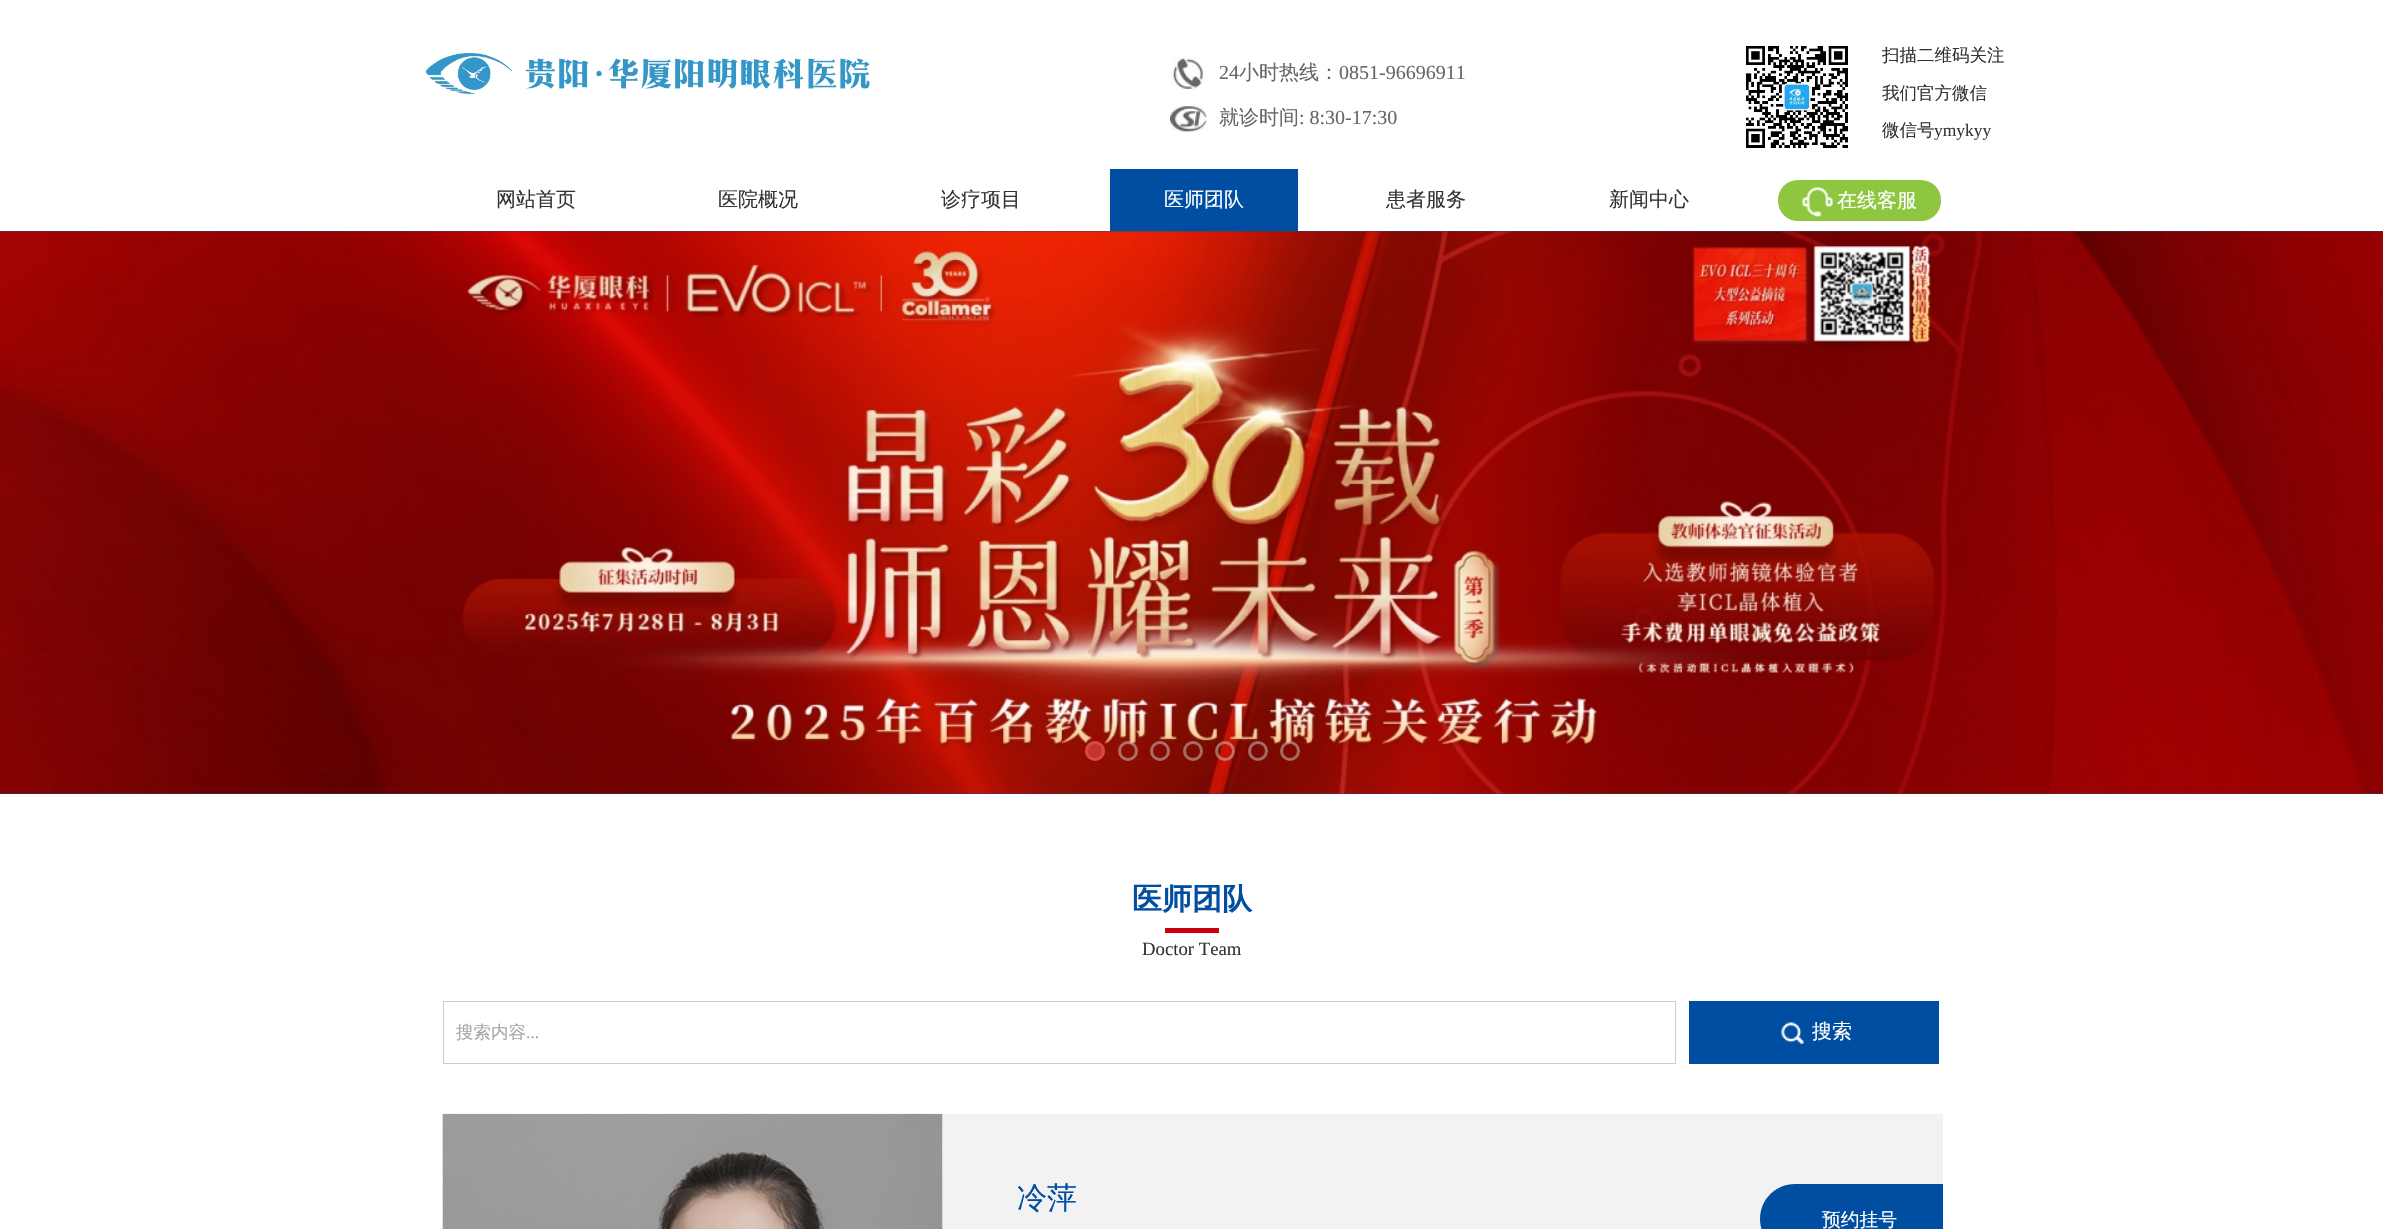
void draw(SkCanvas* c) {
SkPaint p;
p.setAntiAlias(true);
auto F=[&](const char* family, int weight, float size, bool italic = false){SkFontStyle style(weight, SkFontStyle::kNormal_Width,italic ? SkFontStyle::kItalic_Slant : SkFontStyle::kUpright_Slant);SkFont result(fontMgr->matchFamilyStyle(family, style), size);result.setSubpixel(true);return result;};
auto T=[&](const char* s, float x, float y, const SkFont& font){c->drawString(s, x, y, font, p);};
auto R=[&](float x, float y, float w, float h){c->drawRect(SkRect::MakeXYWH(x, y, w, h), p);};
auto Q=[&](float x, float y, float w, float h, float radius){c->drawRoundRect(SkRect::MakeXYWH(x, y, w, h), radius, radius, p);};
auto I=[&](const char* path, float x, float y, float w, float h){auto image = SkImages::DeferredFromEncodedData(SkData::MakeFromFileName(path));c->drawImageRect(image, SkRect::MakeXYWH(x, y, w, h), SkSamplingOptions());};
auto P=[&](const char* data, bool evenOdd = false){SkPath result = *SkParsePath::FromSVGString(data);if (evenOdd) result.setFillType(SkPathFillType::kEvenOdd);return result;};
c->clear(0xffffffff);
I("1.png",425,52,445,43);
I("2.png",1171,56,33,34);
auto f1 = F("Liberation Serif",400,20);
p.setColor(0xff666666);
T("24",1219,79,f1);
auto f2 = F("WenQuanYi Zen Hei",500,20);
T("小时热线：",1239,79,f2);
T("0851-96696911",1339,79,f1);
I("3.png",1170,104,37,28);
T("就诊时间",1219,124,f2);
T(": 8:30-17:30",1299,124,f1);
I("4.png",1744,46,104,102);
auto f3 = F("WenQuanYi Zen Hei",500,17.5);
p.setColor(0xff333333);
T("扫描二维码关注",1882,61,f3);
T("我们官方微信",1882,99,f3);
T("微信号",1882,136,f3);
auto f4 = F("Liberation Serif",400,17.5);
T("ymykyy",1934,136,f4);
T("网站首页",496,206,f2);
T("医院概况",718,206,f2);
T("诊疗项目",941,206,f2);
p.setColor(0xff004ea2);
R(1110,169,188,62);
p.setColor(0xffffffff);
T("医师团队",1164,206,f2);
p.setColor(0xff333333);
T("患者服务",1386,206,f2);
T("新闻中心",1609,206,f2);
p.setColor(0xff8ec63f);
Q(1778,180,163,41,20);
I("5.png",1802,187,31,30);
p.setColor(0xffffffff);
T("在线客服",1837,207,f2);
p.setColor(0xff194982);
R(0,231,2383,563);
I("6.png",0,231,2383,563);
p.setColor(0x80f15b5a);
c->drawCircle(1095,751,10,p);
p.setStroke(true);
p.setStrokeWidth(3);
c->drawCircle(1095,751,8.5,p);
p.setColor(0x80cccccc);
c->drawCircle(1128,751,8.5,p);
c->drawCircle(1160,751,8.5,p);
c->drawCircle(1193,751,8.5,p);
c->drawCircle(1225,751,8.5,p);
c->drawCircle(1258,751,8.5,p);
c->drawCircle(1290,751,8.5,p);
p.setStroke(false);
p.setColor(0xffce000d);
R(1165,928,54,5);
auto f5 = F("WenQuanYi Zen Hei",700,30);
p.setColor(0xff004ea2);
T("医师团队",1132,909,f5);
auto f6 = F("Liberation Serif",400,18.75);
p.setColor(0xff333333);
T("Doctor Team",1142,955,f6);
p.setStroke(true);
p.setStrokeWidth(1);
p.setColor(0xffcccccc);
c->drawRect(SkRect::MakeXYWH(443.5,1001.5,1232,62),p);
p.setStroke(false);
p.setColor(0xffa6a6a6);
T("搜索内容",456,1038,f3);
T("...",526,1038,f4);
p.setColor(0xff004ea2);
R(1689,1001,250,63);
I("7.png",1781,1022,23,22);
p.setColor(0xffffffff);
T("搜索",1812,1038,f2);
p.setColor(0xfff2f2f2);
R(942,1114,1001,115);
I("8.png",442,1113,501,116);
I("9.png",442,1113,501,116);
auto f7 = F("WenQuanYi Zen Hei",500,30);
p.setColor(0xff004ea2);
T("冷萍",1017,1208,f7);
c->drawPath(P("M1795 1184h148v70h-148c-19.5 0-35-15.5-35-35c0-19.5 15.5-35 35-35z"),p);
auto f8 = F("WenQuanYi Zen Hei",500,18.75);
p.setColor(0xffffffff);
T("预约挂号",1822,1226,f8);
}
